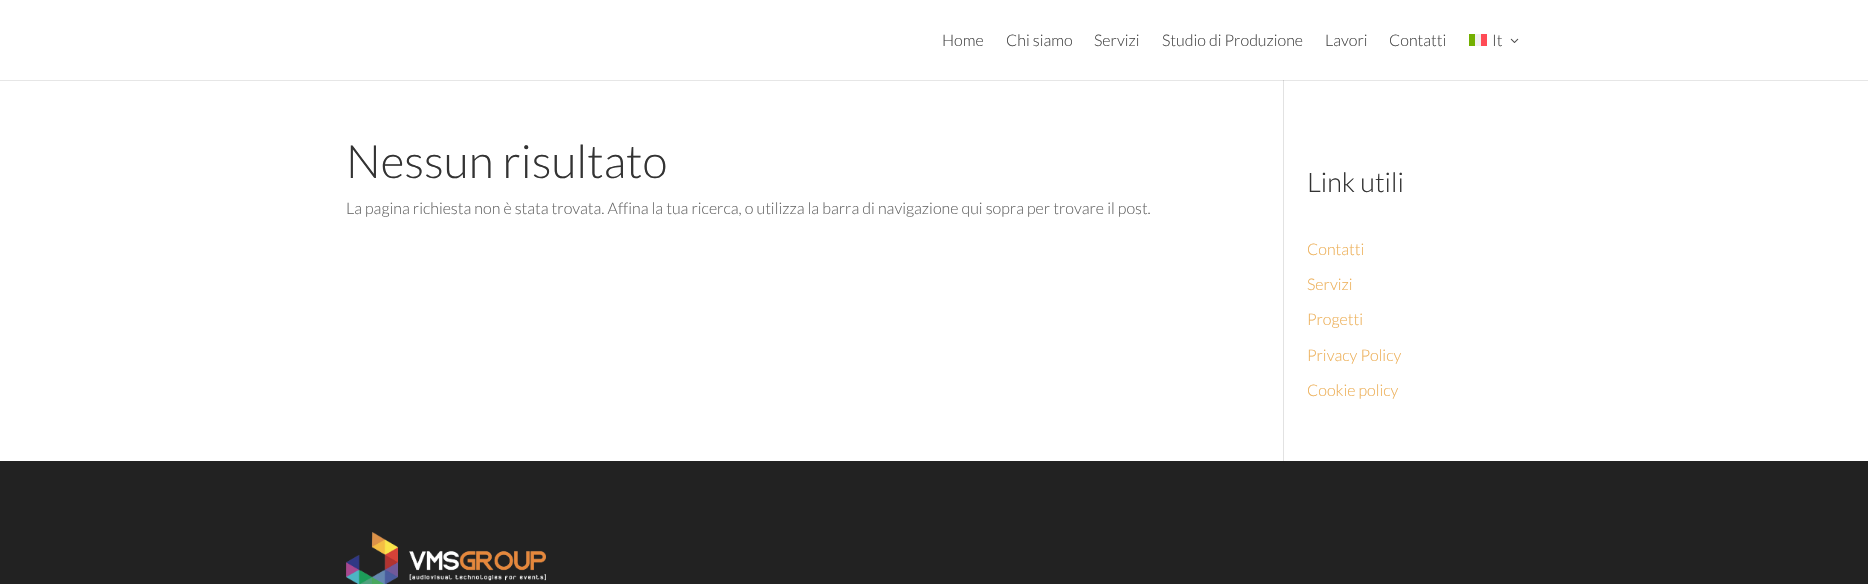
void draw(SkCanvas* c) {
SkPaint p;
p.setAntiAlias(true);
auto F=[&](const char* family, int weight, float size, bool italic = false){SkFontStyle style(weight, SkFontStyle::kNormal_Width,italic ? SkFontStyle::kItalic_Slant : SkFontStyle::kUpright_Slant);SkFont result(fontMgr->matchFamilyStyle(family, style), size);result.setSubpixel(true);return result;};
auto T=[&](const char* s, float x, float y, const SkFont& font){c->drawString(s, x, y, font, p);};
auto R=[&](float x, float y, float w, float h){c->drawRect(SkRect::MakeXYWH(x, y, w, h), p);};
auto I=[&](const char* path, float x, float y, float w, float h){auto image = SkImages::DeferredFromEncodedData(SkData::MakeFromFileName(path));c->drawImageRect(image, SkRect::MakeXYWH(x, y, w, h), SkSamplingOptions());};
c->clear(0xffffffff);
p.setColor(0xffe6e6e6);
R(0,80,1868,1);
auto f1 = F("Lato",300,16);
p.setColor(0xff474747);
T("Home",942,46,f1);
T("Chi siamo",1006,46,f1);
T("Servizi",1094,46,f1);
T("Studio di Produzione",1162,46,f1);
T("Lavori",1325,46,f1);
T("Contatti",1389,46,f1);
p.setColor(0xff73af00);
R(1469,34,6,12);
p.setColor(0xfff0f0f0);
R(1475,34,6,12);
p.setColor(0xffff4b55);
R(1481,34,6,12);
p.setColor(0xff474747);
T("It",1492,46,f1);
I("1.png",1510,38,9,5);
p.setColor(0xffe2e2e2);
R(1283,80,1,381);
p.setColor(0xffcbcbcb);
R(1283,80,1,1);
auto f2 = F("Lato",300,46);
p.setColor(0xff333333);
T("Nessun risultato",346,178,f2);
p.setColor(0xff666666);
T("La pagina richiesta non è stata trovata. Affina la tua ricerca, o utilizza la barra di navigazione qui sopra per trovare il post.",346,214,f1);
auto f3 = F("Lato",300,27);
p.setColor(0xff333333);
T("Link utili",1307,192,f3);
p.setColor(0xffedb059);
T("Contatti",1307,255,f1);
T("Servizi",1307,290,f1);
T("Progetti",1307,325,f1);
T("Privacy Policy",1307,361,f1);
T("Cookie policy",1307,396,f1);
p.setColor(0xff222222);
R(0,461,1868,123);
I("2.png",346,532,200,52);
}
